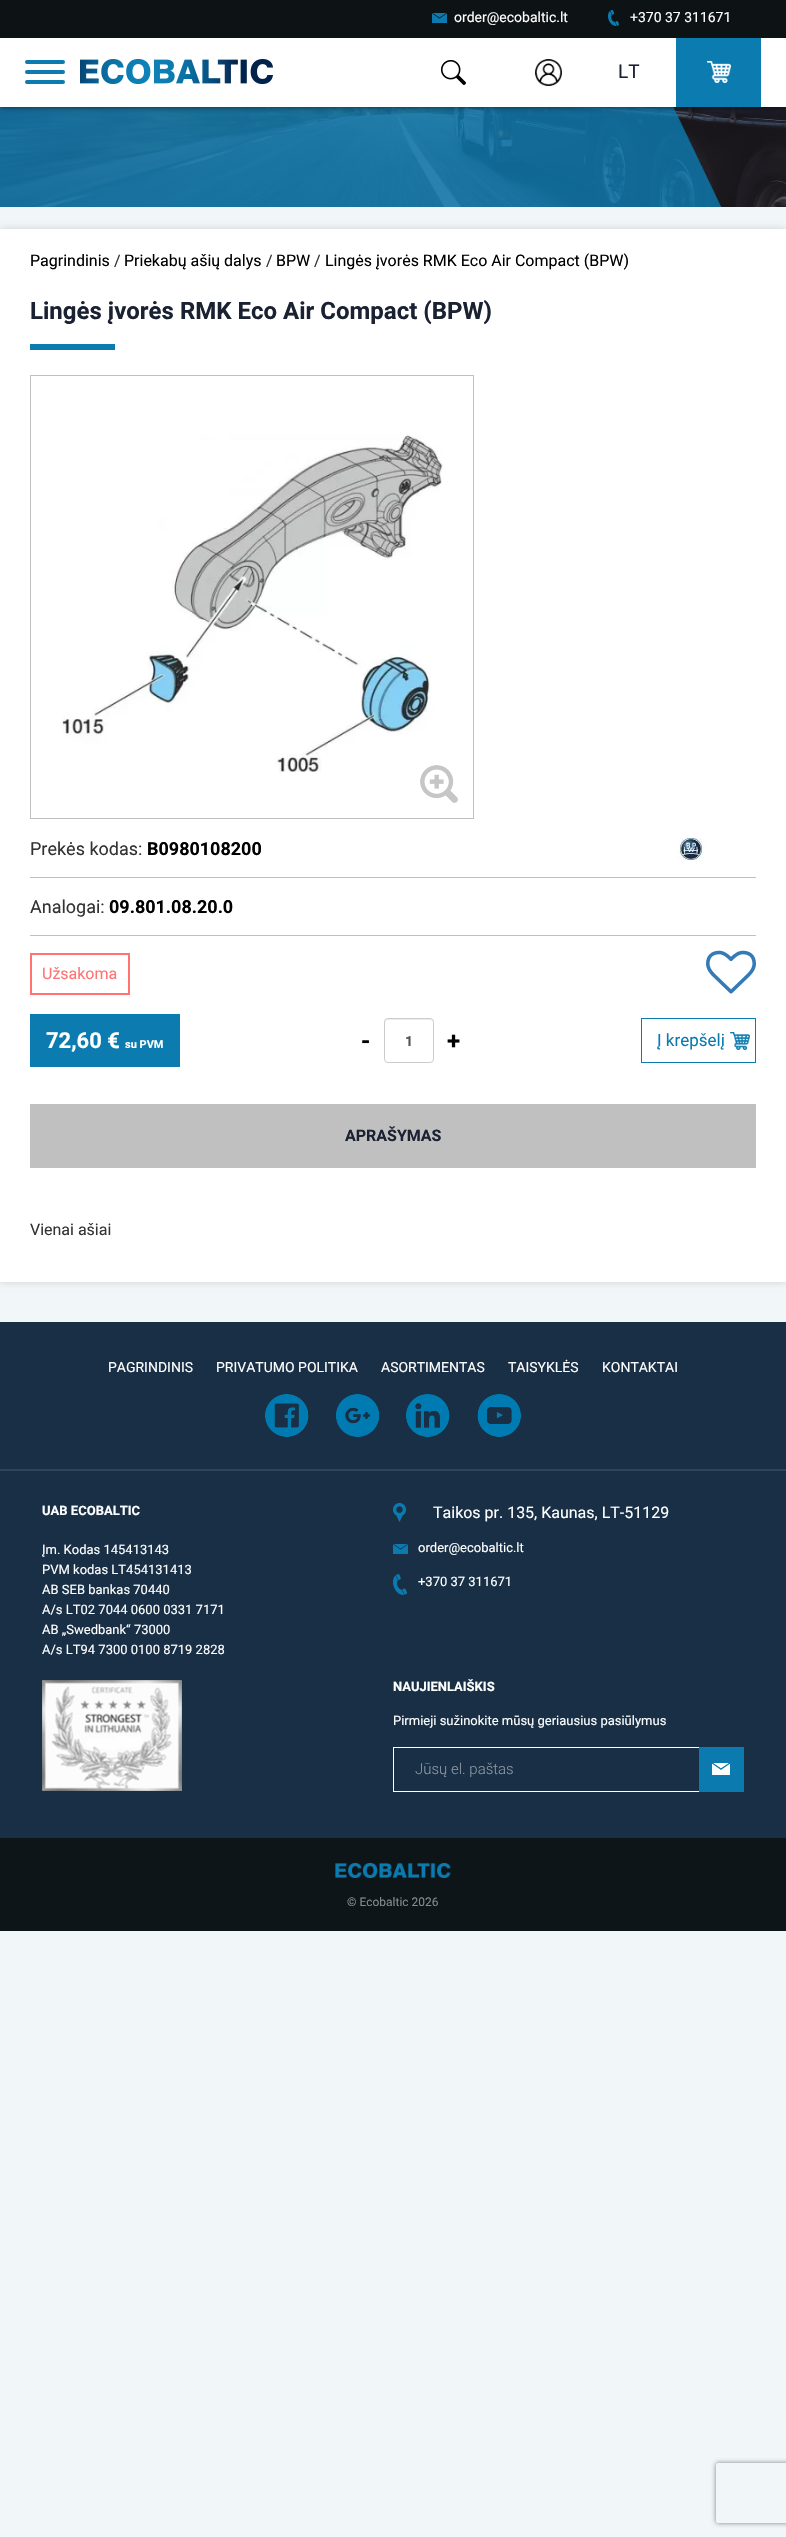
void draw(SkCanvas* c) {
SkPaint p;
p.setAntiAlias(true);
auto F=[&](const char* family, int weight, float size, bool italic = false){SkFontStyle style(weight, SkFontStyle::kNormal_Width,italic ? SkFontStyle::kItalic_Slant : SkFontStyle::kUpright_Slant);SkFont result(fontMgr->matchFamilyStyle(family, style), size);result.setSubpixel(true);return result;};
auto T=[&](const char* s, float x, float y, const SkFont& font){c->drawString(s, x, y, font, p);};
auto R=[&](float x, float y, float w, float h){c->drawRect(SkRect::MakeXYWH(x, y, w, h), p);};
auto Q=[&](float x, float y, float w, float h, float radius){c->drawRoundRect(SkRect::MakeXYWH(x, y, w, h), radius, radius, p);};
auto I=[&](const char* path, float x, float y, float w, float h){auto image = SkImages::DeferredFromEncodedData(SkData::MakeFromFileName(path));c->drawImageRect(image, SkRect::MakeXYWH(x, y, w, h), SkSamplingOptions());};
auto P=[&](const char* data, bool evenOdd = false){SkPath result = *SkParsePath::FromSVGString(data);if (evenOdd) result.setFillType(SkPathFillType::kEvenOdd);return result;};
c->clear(0xfff1f6f8);
I("7.png",0,107,786,100);
I("8.png",0,107,722,100);
p.setColor(0xa1010101);
p.setMaskFilter(SkMaskFilter::MakeBlur(kNormal_SkBlurStyle, 3));
c->drawRect(SkRect::MakeXYWH(0,37,786,70),p);
p.setMaskFilter(nullptr);
p.setColor(0xff0d1315);
R(0,0,786,38);
I("1.png",432,13,15,10);
auto f1 = F("Roboto",400,14);
p.setColor(0xffffffff);
T("order@ecobaltic.lt",454,22,f1);
I("2.png",608,10,11,16);
T("+370 37 311671",630,22,f1);
R(0,38,786,69);
p.setColor(0xff0c7bb0);
Q(25,80,40,4,2);
Q(25,60,40,4,2);
Q(25,70,40,4,2);
I("3.png",80,59,193,25);
I("4.png",441,60,25,25);
I("5.png",535,59,27,27);
auto f2 = F("Roboto",400,19);
p.setColor(0xff1a2131);
T("LT",618,78,f2);
p.setColor(0xff0c7bb0);
R(676,38,85,69);
I("6.png",707,61,24,22);
p.setColor(0x26010101);
p.setMaskFilter(SkMaskFilter::MakeBlur(kNormal_SkBlurStyle, 3.5));
c->drawRect(SkRect::MakeXYWH(0,229,786,1053),p);
p.setMaskFilter(nullptr);
p.setColor(0xffffffff);
R(0,229,786,1053);
auto f3 = F("Roboto",400,16);
p.setColor(0xff000000);
T("Pagrindinis",30,266,f3);
p.setColor(0xff333333);
T("/",114,266,f3);
p.setColor(0xff000000);
T("Priekabų ašių dalys",124,266,f3);
p.setColor(0xff333333);
T("/",266,266,f3);
p.setColor(0xff000000);
T("BPW",276,266,f3);
p.setColor(0xff333333);
T("/",314,266,f3);
p.setColor(0xff000000);
T("Lingės įvorės RMK Eco Air Compact (BPW)",325,266,f3);
auto f4 = F("Roboto",700,24);
p.setColor(0xff1a2131);
T("Lingės įvorės RMK Eco Air Compact (BPW)",30,319,f4);
p.setColor(0xff0c7bb0);
R(30,344,85,6);
p.setStroke(true);
p.setStrokeWidth(1);
p.setColor(0xffc0c0c0);
c->drawRect(SkRect::MakeXYWH(30.5,375.5,443,443),p);
I("9.png",62,434,382,338);
I("10.png",420,765,38,38);
auto f5 = F("Roboto",400,18);
p.setStroke(false);
p.setColor(0xff333333);
T("Prekės kodas:",30,855,f5);
auto f6 = F("Roboto",700,18);
p.setColor(0xff000000);
T("B0980108200",147,855,f6);
I("11.png",678,838,27,22);
p.setColor(0xffc0c0c0);
R(30,877,726,1);
R(30,935,726,1);
p.setColor(0xff333333);
T("Analogai:",30,913,f5);
p.setColor(0xff000000);
T("09.801.08.20.0",109,913,f6);
p.setStroke(true);
p.setStrokeWidth(2);
p.setColor(0xffff7373);
c->drawRect(SkRect::MakeXYWH(31,954,98,40),p);
p.setStroke(false);
T("Užsakoma",42,979,f3);
I("12.png",706,950,50,44);
p.setColor(0xff0c7bb0);
R(30,1014,150,53);
auto f7 = F("Roboto",700,22);
p.setColor(0xffffffff);
T("72,60 €",46,1048,f7);
auto f8 = F("Roboto",700,11);
T("su PVM",125,1048,f8);
p.setColor(0xff000000);
T("-",361,1049,f4);
p.setColor(0xffececec);
c->drawPath(P("M388 1020h42c2 0 3 1 3 3c0-6-6-4-10-4h-28c-4 0-10-2-10 4c0-2 1-3 3-3z"),p);
p.setStroke(true);
p.setStrokeWidth(1);
p.setColor(0xffcccccc);
c->drawRoundRect(SkRect::MakeXYWH(384.5,1018.5,49,44),3.5,3.5,p);
auto f9 = F("Roboto",700,14);
p.setStroke(false);
p.setColor(0xff555555);
T("1",405,1046,f9);
p.setColor(0xff000000);
T("+",447,1049,f4);
p.setStroke(true);
p.setColor(0xff0c7bb0);
c->drawRect(SkRect::MakeXYWH(641.5,1018.5,114,44),p);
auto f10 = F("Roboto",400,17);
p.setStroke(false);
T("Į krepšelį",657,1046,f10);
I("13.png",730,1032,20,18);
p.setColor(0xffc0c0c0);
R(30,1104,726,64);
auto f11 = F("Roboto",700,16);
p.setColor(0xff1a2131);
T("APRAŠYMAS",345,1141,f11);
p.setColor(0xff333333);
T("Vienai ašiai",30,1235,f3);
p.setColor(0xff182f45);
R(0,1322,786,516);
p.setColor(0xff304458);
R(0,1469,786,2);
p.setColor(0xffffffff);
T("PAGRINDINIS",108,1372,f1);
T("PRIVATUMO POLITIKA",216,1372,f1);
T("ASORTIMENTAS",381,1372,f1);
T("TAISYKLĖS",508,1372,f1);
T("KONTAKTAI",602,1372,f1);
I("14.png",265,1394,44,43);
I("15.png",336,1394,44,43);
I("16.png",406,1394,44,43);
I("17.png",477,1394,44,43);
auto f12 = F("Roboto",700,13);
T("UAB ECOBALTIC",42,1515,f12);
auto f13 = F("Roboto",400,13);
T("Įm. Kodas 145413143",42,1554,f13);
T("PVM kodas LT454131413",42,1574,f13);
T("AB SEB bankas 70440",42,1594,f13);
T("A/s LT02 7044 0600 0331 7171",42,1614,f13);
T("AB „Swedbank“ 73000",42,1634,f13);
T("A/s LT94 7300 0100 8719 2828",42,1654,f13);
I("18.png",393,1503,13,19);
T("Taikos pr. 135, Kaunas, LT-51129",433,1518,f3);
I("19.png",393,1544,15,10);
T("order@ecobaltic.lt",418,1552,f13);
I("20.png",393,1574,14,21);
T("+370 37 311671",418,1586,f13);
I("21.png",42,1680,140,111);
T("NAUJIENLAIŠKIS",393,1691,f12);
T("Pirmieji sužinokite mūsų geriausius pasiūlymus",393,1725,f13);
R(393,1747,306,1);
R(393,1791,306,1);
R(393,1747,1,45);
auto f14 = F("Roboto",300,15);
p.setColor(0xff8c97a2);
T("Jūsų el. paštas",415,1774,f14);
p.setColor(0xff0b7aaf);
R(699,1747,45,45);
I("22.png",712,1763,18,12);
p.setColor(0xff0d1519);
R(0,1838,786,93);
I("23.png",335,1863,116,15);
auto f15 = F("Roboto",400,12);
p.setColor(0xff868a8c);
T("© Ecobaltic 2026",347,1906,f15);
c->save();
c->clipPath(P("M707 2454h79v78h-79zm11 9h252c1 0 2 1 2 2v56c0 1-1 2-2 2h-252c-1 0-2-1-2-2v-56c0-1 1-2 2-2z",true),true);
p.setColor(0xff808080);
p.setMaskFilter(SkMaskFilter::MakeBlur(kNormal_SkBlurStyle, 2.5));
c->drawRoundRect(SkRect::MakeXYWH(716,2463,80,60),2,2,p);
p.setMaskFilter(nullptr);
c->restore();
}
